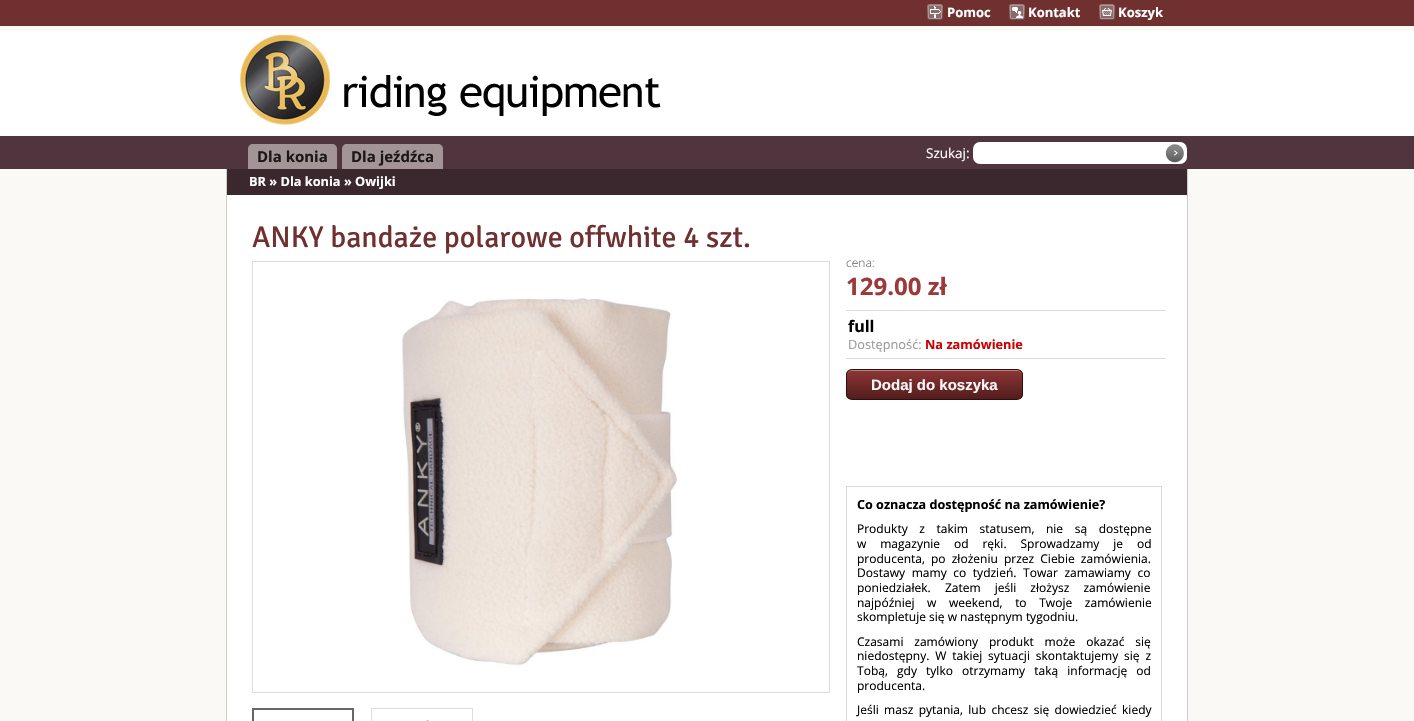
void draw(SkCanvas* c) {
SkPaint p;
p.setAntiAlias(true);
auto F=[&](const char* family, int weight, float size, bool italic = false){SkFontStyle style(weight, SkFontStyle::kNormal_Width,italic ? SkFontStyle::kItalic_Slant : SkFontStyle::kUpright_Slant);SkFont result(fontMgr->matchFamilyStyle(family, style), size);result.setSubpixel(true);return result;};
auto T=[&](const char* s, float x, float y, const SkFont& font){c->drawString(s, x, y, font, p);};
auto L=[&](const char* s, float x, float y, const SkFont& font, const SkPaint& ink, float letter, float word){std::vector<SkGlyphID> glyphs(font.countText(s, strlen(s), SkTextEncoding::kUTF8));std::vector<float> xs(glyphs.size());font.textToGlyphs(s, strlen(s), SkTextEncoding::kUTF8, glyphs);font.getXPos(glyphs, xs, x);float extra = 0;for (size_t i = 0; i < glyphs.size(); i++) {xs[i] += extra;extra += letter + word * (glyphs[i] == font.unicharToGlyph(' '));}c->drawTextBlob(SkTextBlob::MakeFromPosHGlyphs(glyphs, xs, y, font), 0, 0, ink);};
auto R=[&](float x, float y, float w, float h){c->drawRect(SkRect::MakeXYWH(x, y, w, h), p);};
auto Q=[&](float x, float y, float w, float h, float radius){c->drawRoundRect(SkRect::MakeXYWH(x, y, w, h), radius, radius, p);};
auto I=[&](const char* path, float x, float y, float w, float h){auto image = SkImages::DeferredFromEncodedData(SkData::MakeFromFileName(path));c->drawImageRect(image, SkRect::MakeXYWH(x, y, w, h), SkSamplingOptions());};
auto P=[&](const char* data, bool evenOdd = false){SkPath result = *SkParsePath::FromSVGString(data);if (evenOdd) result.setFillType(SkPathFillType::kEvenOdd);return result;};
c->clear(0xfffbf9f6);
p.setColor(0xff703030);
R(0,0,1414,26);
I("1.png",927,4,16,16);
auto f1 = F("Open Sans",700,13);
p.setColor(0xffffffff);
T("Pomoc",947,17,f1);
I("2.png",1009,4,16,16);
T("Kontakt",1028,17,f1);
I("3.png",1099,4,16,16);
T("Koszyk",1118,17,f1);
R(0,31,1414,105);
I("4.png",240,35,421,90);
p.setColor(0xff50353e);
R(0,136,1414,33);
p.setColor(0xffa39597);
c->drawPath(P("M253 144h79c3 0 5 2 5 5v20h-89v-20c0-3 2-5 5-5z"),p);
auto f2 = F("Open Sans",700,15);
p.setColor(0xff191818);
T("Dla konia",257,162,f2);
p.setColor(0xffa39597);
c->drawPath(P("M347 144h91c3 0 5 2 5 5v20h-101v-20c0-3 2-5 5-5z"),p);
p.setColor(0xff191818);
T("Dla jeźdźca",351,162,f2);
auto f3 = F("Open Sans",400,13.5);
p.setColor(0xffffffff);
T("Szukaj:",926,158,f3);
Q(973,142,214,22,7);
I("5.png",1165,144,19,19);
R(227,195,960,526);
p.setColor(0xffcfcdca);
R(1187,169,1,552);
R(226,169,1,552);
p.setColor(0xff3b272e);
R(227,169,960,26);
auto f4 = F("Open Sans",700,12.75);
p.setColor(0xffffffff);
T("BR » Dla konia » Owijki",249,186,f4);
auto f5 = F("Signika",400,30);
p.setColor(0xff703030);
T("ANKY bandaże polarowe offwhite 4 szt.",252,247,f5);
p.setStroke(true);
p.setStrokeWidth(1);
p.setColor(0xffdddddd);
c->drawRect(SkRect::MakeXYWH(252.5,261.5,577,431),p);
I("6.png",402,298,275,368);
auto f6 = F("Open Sans",300,12);
p.setStroke(false);
p.setColor(0xff666666);
T("cena:",846,267,f6);
auto f7 = F("Open Sans",700,24);
p.setColor(0xff9c3a3a);
T("129.00 zł",846,295,f7);
p.setColor(0xffdddddd);
R(846,310,320,1);
R(846,358,320,1);
auto f8 = F("Open Sans",700,16);
p.setColor(0xff000000);
T("full",848,332,f8);
auto f9 = F("Open Sans",400,12.75);
p.setColor(0xff999999);
T("Dostępność:",848,349,f9);
p.setColor(0xffd10000);
T("Na zamówienie",925,349,f4);
c->save();
c->clipPath(P("M852 369h165c3.5 0 6 2.5 6 6v19c0 3.5-2.5 6-6 6h-165c-3.5 0-6-2.5-6-6v-19c0-3.5 2.5-6 6-6z"),true);
{
const SkColor colors[] = {0xff8c3434,0xff521d1d};
const float stops[] = {.05,1};
const SkPoint ends[] = {{847,370}, {847,399}};
p.setShader(SkGradientShader::MakeLinear(ends, colors, stops, 2, SkTileMode::kClamp));
p.setAlpha(255);
}
R(846,370,177,29);
c->restore();
p.setShader(nullptr);
p.setColor(0xffa88a8a);
c->drawPath(P("M852 371h165c3 0 5 2 5 5c0-3-1-5-4-6h-166l-3 1c-2 1-2 3-2 5c0-3 2-5 5-5z"),p);
p.setStroke(true);
p.setColor(0xff330c0c);
c->drawRoundRect(SkRect::MakeXYWH(846.5,369.5,176,30),5.5,5.5,p);
auto f10 = F("Liberation Sans",700,15);
p.setStroke(false);
p.setColor(0xfff7f7f7);
T("Dodaj do koszyka",871,390,f10);
p.setStroke(true);
p.setColor(0xffddd8d9);
c->drawRect(SkRect::MakeXYWH(846.5,486.5,315,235),p);
auto f11 = F("Open Sans",700,12.6);
p.setStroke(false);
p.setColor(0xff000000);
T("Co oznacza dostępność na zamówienie?",857,509,f11);
auto f12 = F("Open Sans",400,12);
L("Produkty z takim statusem, nie są dostępne",857,533,f12,p,0,8.5);
L("w magazynie od ręki. Sprowadzamy je od",857,548,f12,p,0,10.75);
L("producenta, po złożeniu przez Ciebie zamówienia.",857,563,f12,p,0,3);
L("Dostawy mamy co tydzień. Towar zamawiamy co",857,577,f12,p,0,3.5);
L("poniedziałek. Zatem jeśli złożysz zamówienie",857,592,f12,p,0,11);
L("najpóźniej w weekend, to Twoje zamówienie",857,607,f12,p,0,9.5);
T("skompletuje się w następnym tygodniu.",857,621,f12);
L("Czasami zamówiony produkt może okazać się",857,646,f12,p,0,7.75);
L("niedostępny. W takiej sytuacji skontaktujemy się z",857,660,f12,p,0,2.75);
L("Tobą, gdy tylko otrzymamy taką informację od",857,675,f12,p,0,6);
T("producenta.",857,690,f12);
L("Jeśli masz pytania, lub chcesz się dowiedzieć kiedy",857,714,f12,p,0,2.25);
p.setStroke(true);
p.setStrokeWidth(2);
p.setColor(0xff666666);
c->drawRect(SkRect::MakeXYWH(253,709,100,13),p);
p.setStrokeWidth(1);
p.setColor(0xffdddddd);
c->drawRect(SkRect::MakeXYWH(371.5,708.5,101,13),p);
I("7.png",426,720,3,1);
}
